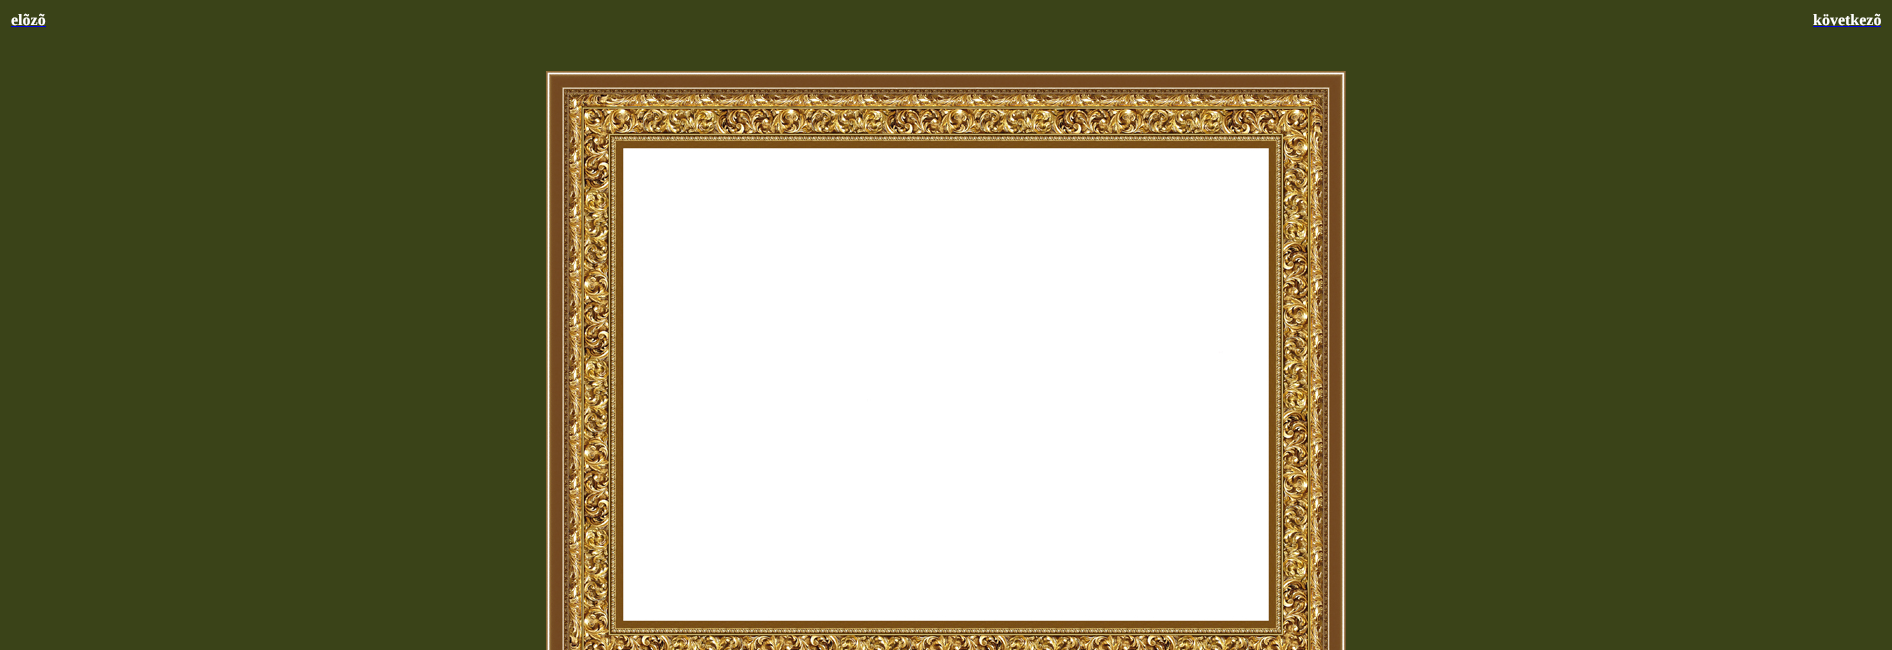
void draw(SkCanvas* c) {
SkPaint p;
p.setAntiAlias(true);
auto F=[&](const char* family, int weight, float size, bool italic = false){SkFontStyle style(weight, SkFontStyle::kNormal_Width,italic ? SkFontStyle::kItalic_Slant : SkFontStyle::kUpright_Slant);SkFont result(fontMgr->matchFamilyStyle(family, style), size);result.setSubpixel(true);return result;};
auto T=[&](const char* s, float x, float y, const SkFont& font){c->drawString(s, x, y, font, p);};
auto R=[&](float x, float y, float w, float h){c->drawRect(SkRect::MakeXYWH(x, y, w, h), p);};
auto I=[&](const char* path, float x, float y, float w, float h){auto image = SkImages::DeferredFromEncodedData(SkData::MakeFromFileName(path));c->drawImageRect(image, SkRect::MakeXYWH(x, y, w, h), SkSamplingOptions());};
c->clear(0xff3a4318);
auto f1 = F("Liberation Serif",700,16);
p.setColor(0xffffffff);
T("elõzõ",11,25,f1);
p.setColor(0xff0000ee);
R(11,26,35,1);
p.setColor(0xffffffff);
T("következõ",1813,25,f1);
p.setColor(0xff0000ee);
R(1813,26,68,1);
I("1.png",546,71,800,579);
}
